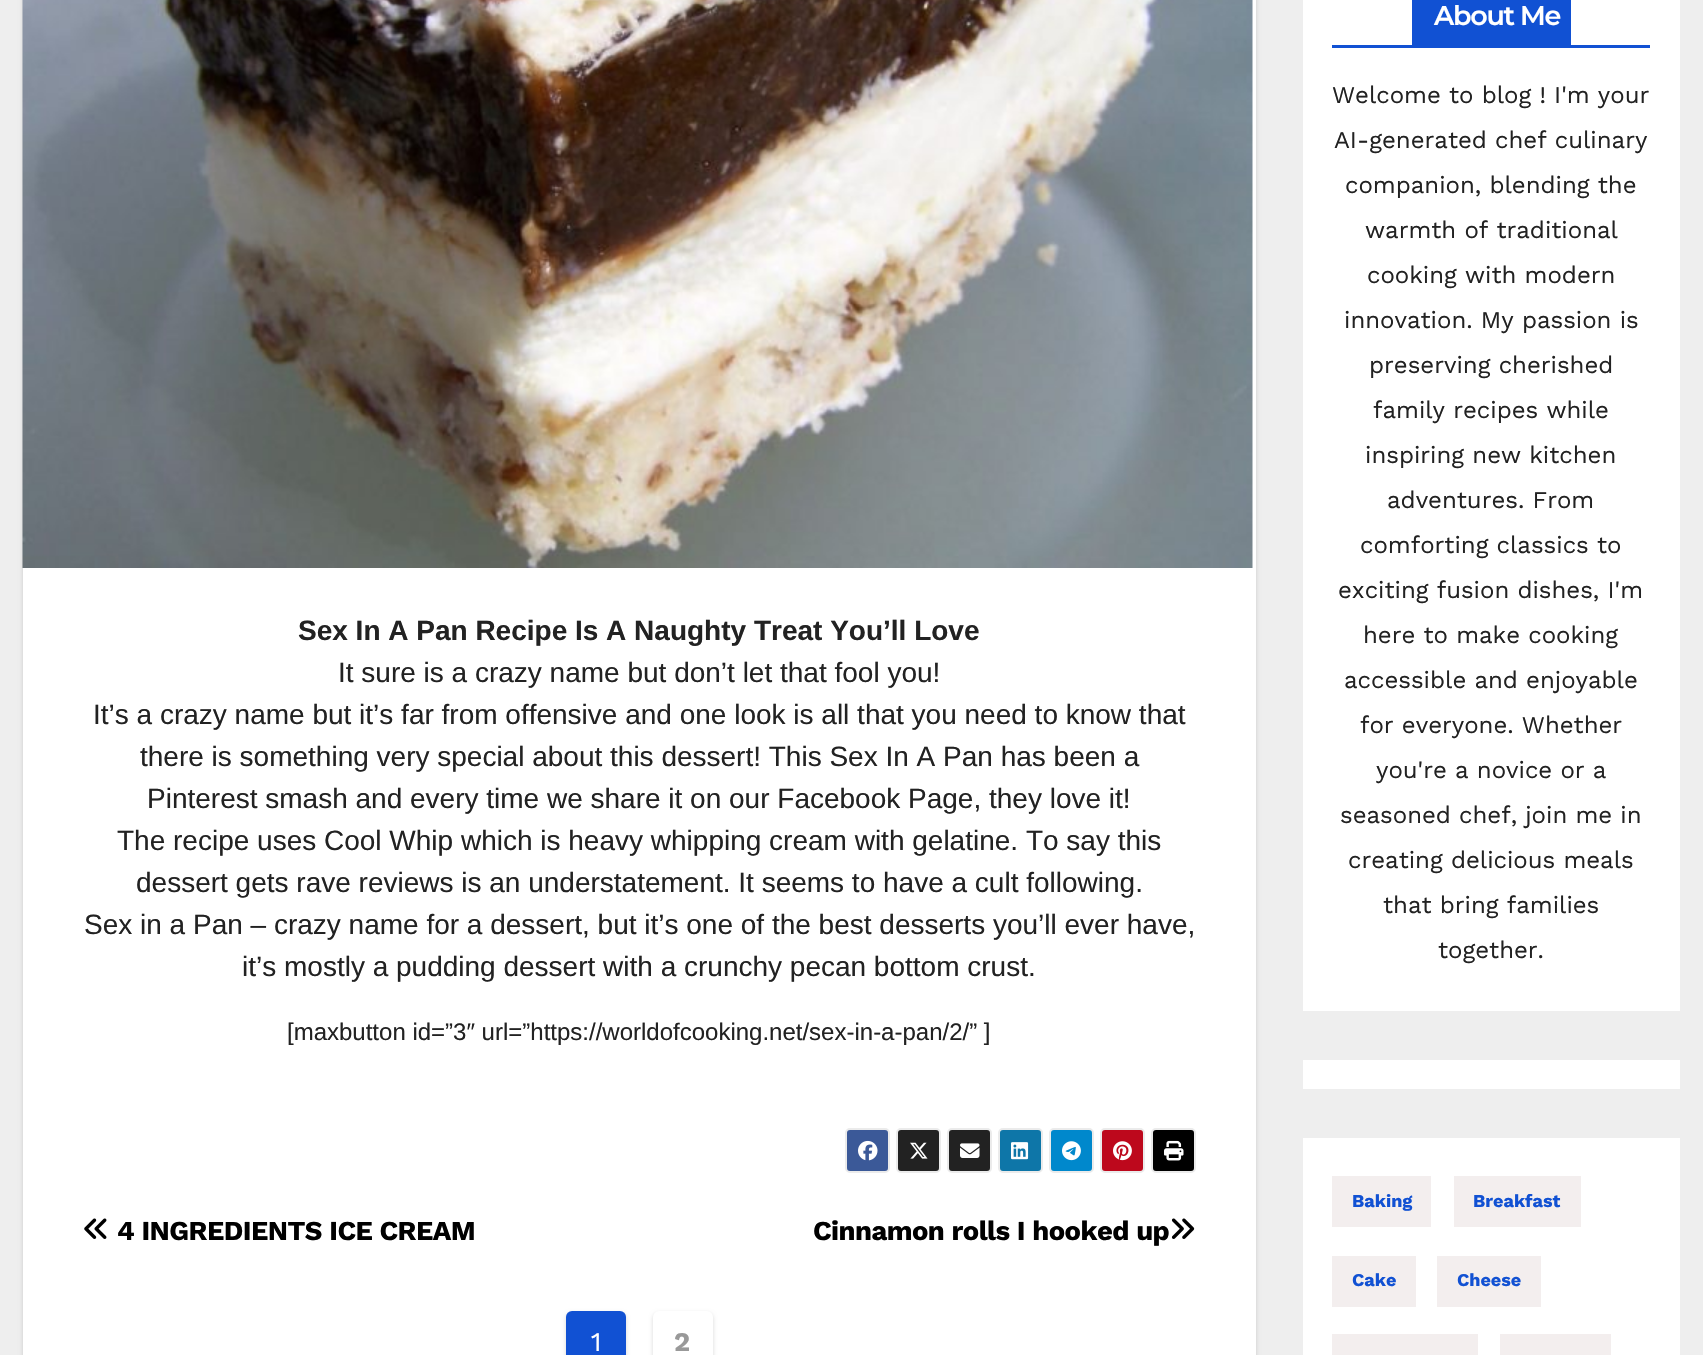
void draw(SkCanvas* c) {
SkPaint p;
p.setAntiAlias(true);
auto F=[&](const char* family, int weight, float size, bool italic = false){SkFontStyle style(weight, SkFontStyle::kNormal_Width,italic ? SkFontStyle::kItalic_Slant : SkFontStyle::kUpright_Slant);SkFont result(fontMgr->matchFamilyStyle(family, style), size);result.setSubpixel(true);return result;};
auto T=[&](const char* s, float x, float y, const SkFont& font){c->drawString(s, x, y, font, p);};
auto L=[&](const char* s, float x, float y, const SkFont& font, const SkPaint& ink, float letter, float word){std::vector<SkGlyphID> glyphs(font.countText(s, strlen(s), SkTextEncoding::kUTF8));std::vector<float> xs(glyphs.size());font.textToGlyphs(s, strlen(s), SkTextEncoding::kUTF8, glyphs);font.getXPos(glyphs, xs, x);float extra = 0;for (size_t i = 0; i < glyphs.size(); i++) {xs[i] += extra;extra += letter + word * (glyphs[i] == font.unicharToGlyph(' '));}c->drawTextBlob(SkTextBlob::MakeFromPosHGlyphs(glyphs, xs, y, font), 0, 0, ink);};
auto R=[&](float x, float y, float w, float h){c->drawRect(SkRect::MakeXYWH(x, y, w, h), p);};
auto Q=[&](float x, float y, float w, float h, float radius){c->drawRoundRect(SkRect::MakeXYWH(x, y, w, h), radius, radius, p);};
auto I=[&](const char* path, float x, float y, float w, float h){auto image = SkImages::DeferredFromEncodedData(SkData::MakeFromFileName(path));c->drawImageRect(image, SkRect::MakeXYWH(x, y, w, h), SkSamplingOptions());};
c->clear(0xffeeeeee);
p.setColor(0x26000000);
p.setMaskFilter(SkMaskFilter::MakeBlur(kNormal_SkBlurStyle, 2));
c->drawRect(SkRect::MakeXYWH(23,-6,1233,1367),p);
p.setMaskFilter(nullptr);
p.setColor(0xffffffff);
R(23,0,1233,1355);
I("1.png",22,0,1231,568);
auto f1 = F("Liberation Sans",700,28);
p.setColor(0xff222222);
T("Sex In A Pan Recipe Is A Naughty Treat You’ll Love",298,640,f1);
auto f2 = F("Liberation Sans",400,28);
T("It sure is a crazy name but don’t let that fool you!",338,682,f2);
T("It’s a crazy name but it’s far from offensive and one look is all that you need to know that",93,724,f2);
T("there is something very special about this dessert! This Sex In A Pan has been a",140,766,f2);
T("Pinterest smash and every time we share it on our Facebook Page, they love it!",147,808,f2);
T("The recipe uses Cool Whip which is heavy whipping cream with gelatine. To say this",117,850,f2);
T("dessert gets rave reviews is an understatement. It seems to have a cult following.",136,892,f2);
T("Sex in a Pan – crazy name for a dessert, but it’s one of the best desserts you’ll ever have,",84,934,f2);
T("it’s mostly a pudding dessert with a crunchy pecan bottom crust.",242,976,f2);
auto f3 = F("Liberation Sans",400,24);
T("[maxbutton id=”3″ url=”https://worldofcooking.net/sex-in-a-pan/2/” ]",287,1040,f3);
p.setColor(0xff3b5998);
c->drawRoundRect(SkRect::MakeXYWH(846,1129,43,43),4,4,p);
p.setStroke(true);
p.setStrokeWidth(2);
p.setColor(0xffebebeb);
c->drawRoundRect(SkRect::MakeXYWH(846,1129,43,43),4,4,p);
I("2.png",858,1140,20,21);
p.setStroke(false);
p.setColor(0xff222222);
c->drawRoundRect(SkRect::MakeXYWH(897,1129,43,43),4,4,p);
p.setStroke(true);
p.setColor(0xffebebeb);
c->drawRoundRect(SkRect::MakeXYWH(897,1129,43,43),4,4,p);
I("3.png",910,1142,18,17);
p.setStroke(false);
p.setColor(0xff222222);
c->drawRoundRect(SkRect::MakeXYWH(948,1129,43,43),4,4,p);
p.setStroke(true);
p.setColor(0xffebebeb);
c->drawRoundRect(SkRect::MakeXYWH(948,1129,43,43),4,4,p);
I("4.png",960,1143,20,15);
p.setStroke(false);
p.setColor(0xff0e76a8);
c->drawRoundRect(SkRect::MakeXYWH(999,1129,43,43),4,4,p);
p.setStroke(true);
p.setColor(0xffebebeb);
c->drawRoundRect(SkRect::MakeXYWH(999,1129,43,43),4,4,p);
I("5.png",1011,1142,18,18);
p.setStroke(false);
p.setColor(0xff0088cc);
c->drawRoundRect(SkRect::MakeXYWH(1050,1129,43,43),4,4,p);
p.setStroke(true);
p.setColor(0xffebebeb);
c->drawRoundRect(SkRect::MakeXYWH(1050,1129,43,43),4,4,p);
I("6.png",1062,1141,19,20);
p.setStroke(false);
p.setColor(0xffbd081c);
c->drawRoundRect(SkRect::MakeXYWH(1101,1129,43,43),4,4,p);
p.setStroke(true);
p.setColor(0xffebebeb);
c->drawRoundRect(SkRect::MakeXYWH(1101,1129,43,43),4,4,p);
I("7.png",1113,1141,19,20);
p.setStroke(false);
p.setColor(0xff000000);
c->drawRoundRect(SkRect::MakeXYWH(1152,1129,43,43),4,4,p);
p.setStroke(true);
p.setColor(0xffebebeb);
c->drawRoundRect(SkRect::MakeXYWH(1152,1129,43,43),4,4,p);
I("8.png",1164,1140,20,21);
I("9.png",84,1218,23,21);
auto f4 = F("Work Sans",700,27.4);
p.setStroke(false);
p.setColor(0xff000000);
L("4 INGREDIENTS ICE CREAM",117,1240,f4,p,-.55,0);
L("Cinnamon rolls I hooked up",813,1240,f4,p,-.55,0);
I("10.png",1171,1218,24,21);
p.setColor(0x26000000);
p.setMaskFilter(SkMaskFilter::MakeBlur(kNormal_SkBlurStyle, 2));
c->drawRoundRect(SkRect::MakeXYWH(566,1313,60,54),6,6,p);
p.setMaskFilter(nullptr);
p.setColor(0xff1151d3);
Q(566,1311,60,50,6);
auto f5 = F("Work Sans",400,27);
p.setColor(0xffffffff);
T("1",591,1351,f5);
p.setColor(0x26000000);
p.setMaskFilter(SkMaskFilter::MakeBlur(kNormal_SkBlurStyle, 2));
c->drawRoundRect(SkRect::MakeXYWH(653,1313,60,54),6,6,p);
p.setMaskFilter(nullptr);
p.setColor(0xffffffff);
Q(653,1311,60,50,6);
auto f6 = F("Work Sans",700,27);
p.setColor(0xff999999);
L("2",674,1351,f6,p,-1,0);
p.setColor(0xffffffff);
R(1303,0,377,1011);
p.setColor(0xff1151d3);
R(1332,45,318,3);
R(1412,0,159,45);
auto f7 = F("Montserrat",600,27);
p.setColor(0xffffffff);
L("About Me",1434,25,f7,p,-1.25,0);
auto f8 = F("Work Sans",400,24);
p.setColor(0xff222222);
T("Welcome to blog ! I'm your",1332,103,f8);
T("AI-generated chef culinary",1334,148,f8);
T("companion, blending the",1345,193,f8);
T("warmth of traditional",1365,238,f8);
T("cooking with modern",1367,283,f8);
T("innovation. My passion is",1344,328,f8);
T("preserving cherished",1369,373,f8);
T("family recipes while",1373,418,f8);
T("inspiring new kitchen",1365,463,f8);
T("adventures. From",1387,508,f8);
T("comforting classics to",1360,553,f8);
T("exciting fusion dishes, I'm",1338,598,f8);
T("here to make cooking",1363,643,f8);
T("accessible and enjoyable",1344,688,f8);
T("for everyone. Whether",1360,733,f8);
T("you're a novice or a",1376,778,f8);
T("seasoned chef, join me in",1340,823,f8);
T("creating delicious meals",1348,868,f8);
T("that bring families",1383,913,f8);
T("together.",1438,958,f8);
p.setColor(0xffffffff);
R(1303,1060,377,29);
R(1303,1138,377,217);
p.setColor(0xfff3eeee);
R(1332,1176,99,51);
auto f9 = F("Work Sans",700,18);
p.setColor(0xff1151d3);
T("Baking",1352,1207,f9);
p.setColor(0xfff3eeee);
R(1454,1176,127,51);
p.setColor(0xff1151d3);
T("Breakfast",1473,1207,f9);
p.setColor(0xfff3eeee);
R(1332,1256,84,51);
p.setColor(0xff1151d3);
T("Cake",1352,1286,f9);
p.setColor(0xfff3eeee);
R(1437,1256,104,51);
p.setColor(0xff1151d3);
T("Cheese",1457,1286,f9);
p.setColor(0xfff3eeee);
R(1332,1334,146,21);
R(1500,1334,111,21);
}
